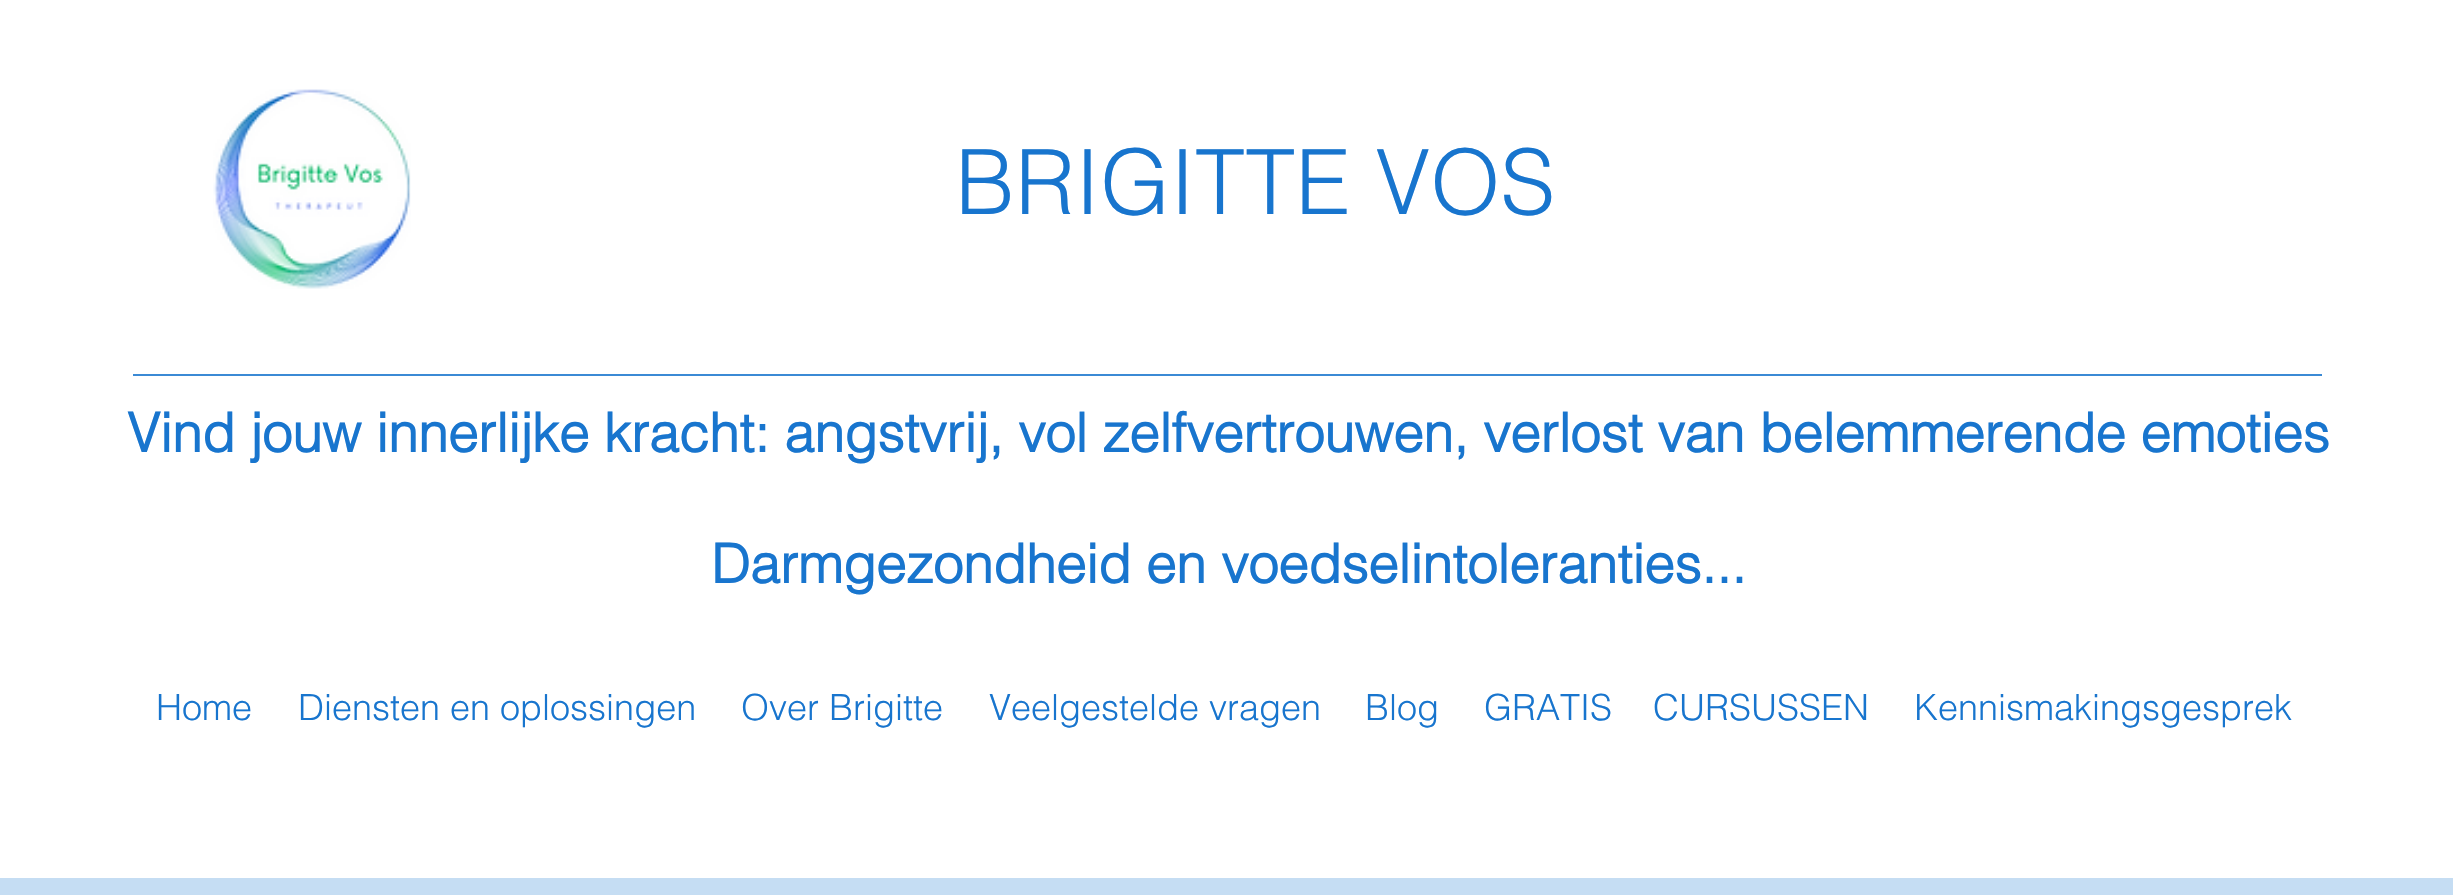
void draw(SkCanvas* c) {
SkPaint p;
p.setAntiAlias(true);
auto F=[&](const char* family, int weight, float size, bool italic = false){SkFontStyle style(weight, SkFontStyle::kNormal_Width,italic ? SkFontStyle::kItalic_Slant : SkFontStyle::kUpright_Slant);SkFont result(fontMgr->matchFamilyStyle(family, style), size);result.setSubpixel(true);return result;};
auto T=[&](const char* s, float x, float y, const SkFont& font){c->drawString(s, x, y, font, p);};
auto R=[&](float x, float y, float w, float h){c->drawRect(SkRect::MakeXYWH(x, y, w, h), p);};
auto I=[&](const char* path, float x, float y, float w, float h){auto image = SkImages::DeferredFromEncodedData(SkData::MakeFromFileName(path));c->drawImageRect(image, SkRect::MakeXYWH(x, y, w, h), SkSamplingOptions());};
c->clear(0xffffffff);
I("1.png",213,89,198,200);
auto f1 = F("helvetica",300,90);
p.setColor(0xff1875ce);
T("BRIGITTE VOS",955,214,f1);
p.setColor(0xff3b8ad5);
R(133,374,2189,2);
auto f2 = F("helvetica",700,54);
p.setColor(0xff1875ce);
T("Vind jouw innerlijke kracht: angstvrij, vol zelfvertrouwen, verlost van belemmerende emoties",127,452,f2);
T("Darmgezondheid en voedselintoleranties...",711,583,f2);
auto f3 = F("helvetica",300,36);
T("Home",156,720,f3);
T("Diensten en oplossingen",298,720,f3);
T("Over Brigitte",741,720,f3);
T("Veelgestelde vragen",989,720,f3);
T("Blog",1365,720,f3);
T("GRATIS",1484,720,f3);
T("CURSUSSEN",1653,720,f3);
T("Kennismakingsgesprek",1914,720,f3);
p.setColor(0xffc5ddf3);
R(0,878,2453,17);
}
